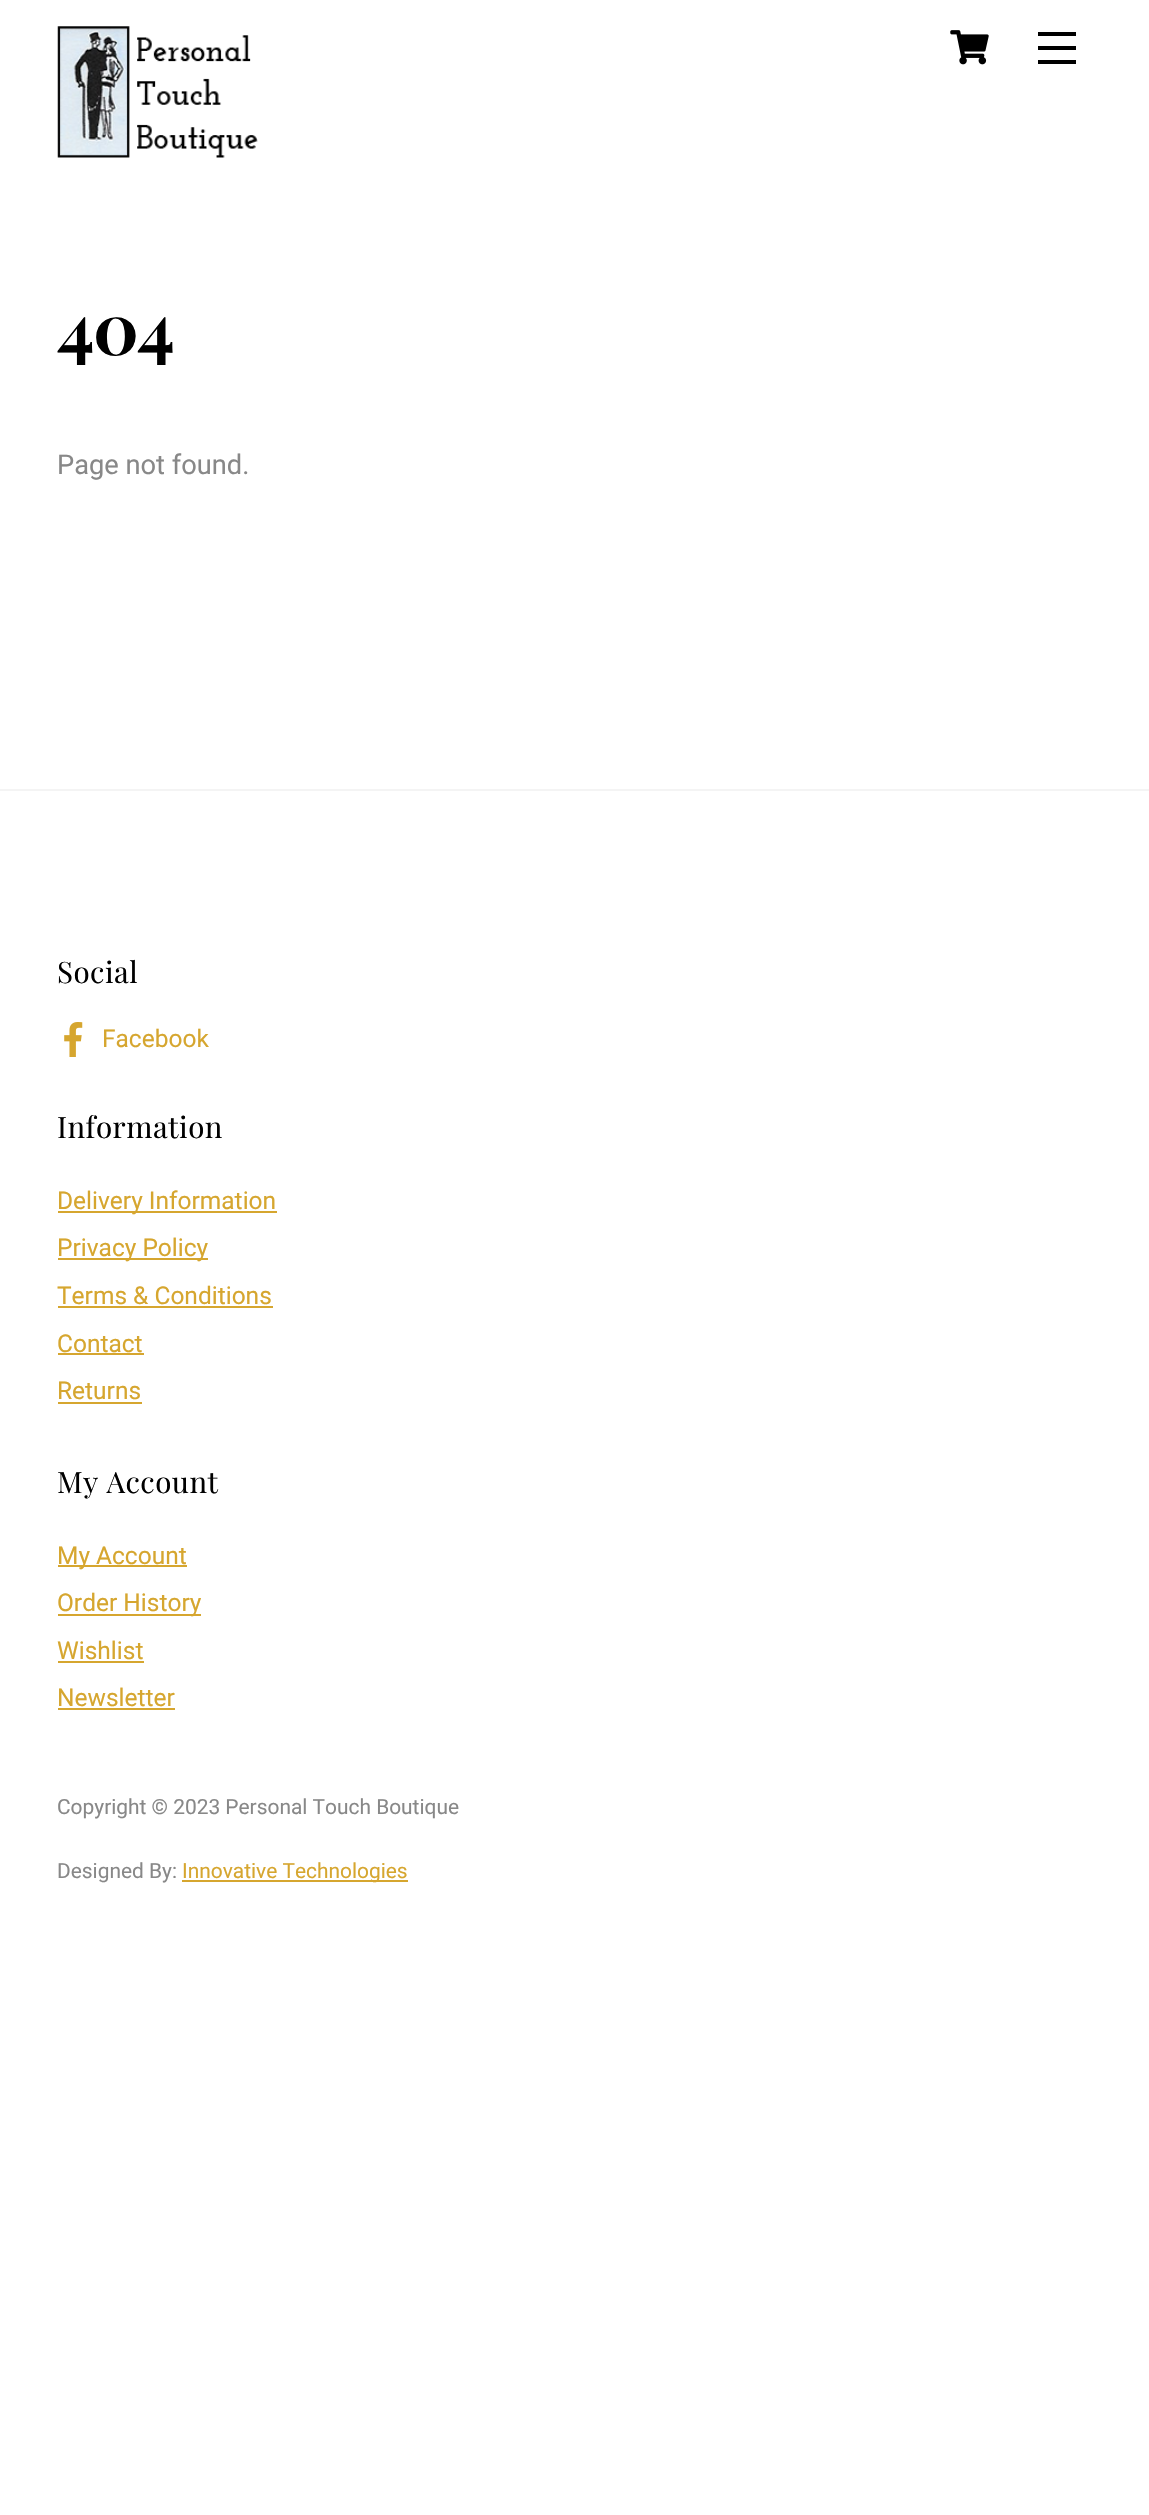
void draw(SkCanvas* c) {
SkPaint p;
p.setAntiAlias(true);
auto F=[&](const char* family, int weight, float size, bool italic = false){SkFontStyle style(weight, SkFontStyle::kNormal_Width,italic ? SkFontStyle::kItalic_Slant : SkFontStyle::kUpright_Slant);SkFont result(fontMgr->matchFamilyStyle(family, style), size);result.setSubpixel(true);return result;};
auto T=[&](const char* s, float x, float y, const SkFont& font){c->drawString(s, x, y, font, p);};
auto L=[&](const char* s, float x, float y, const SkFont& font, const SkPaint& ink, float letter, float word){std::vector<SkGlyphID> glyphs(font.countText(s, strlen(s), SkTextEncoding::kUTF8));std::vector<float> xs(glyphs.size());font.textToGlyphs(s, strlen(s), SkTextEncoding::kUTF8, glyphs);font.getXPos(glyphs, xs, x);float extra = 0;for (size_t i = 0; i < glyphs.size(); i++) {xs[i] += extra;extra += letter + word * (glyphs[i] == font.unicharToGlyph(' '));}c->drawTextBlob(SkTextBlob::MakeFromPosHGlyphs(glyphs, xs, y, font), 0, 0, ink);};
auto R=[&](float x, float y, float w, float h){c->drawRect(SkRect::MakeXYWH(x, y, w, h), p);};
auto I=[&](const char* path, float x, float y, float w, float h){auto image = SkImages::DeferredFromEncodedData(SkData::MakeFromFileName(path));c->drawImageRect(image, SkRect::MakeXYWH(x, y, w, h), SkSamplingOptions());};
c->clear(0xffffffff);
I("1.png",57,26,201,132);
I("2.png",950,30,39,35);
p.setColor(0xff000000);
R(1038,60,38,4);
R(1038,32,38,4);
R(1038,46,38,4);
auto f1 = F("Playfair Display",700,71);
L("404",57,355,f1,p,-1.5,0);
auto f2 = F("Roboto",400,27.25);
p.setColor(0xff888888);
T("Page not found.",57,474,f2);
p.setColor(0xfff4f4f4);
R(0,789,1149,2);
auto f3 = F("Playfair Display",400,29.5);
p.setColor(0xff000000);
L("Social",57,983,f3,p,.5,0);
I("3.png",64,1022,19,35);
auto f4 = F("Roboto",400,24.5);
p.setColor(0xffd6a62f);
T("Facebook",102,1047,f4);
p.setColor(0xff000000);
L("Information",57,1138,f3,p,.5,0);
p.setColor(0xffd6a62f);
R(58,1211,219,2);
T("Delivery Information",57,1209,f4);
R(58,1258,150,2);
T("Privacy Policy",57,1256,f4);
T("Terms & Conditions",57,1304,f4);
R(58,1306,215,2);
T("Contact",57,1352,f4);
R(58,1353,86,2);
T("Returns",57,1399,f4);
R(58,1402,84,2);
p.setColor(0xff000000);
L("My Account",57,1493,f3,p,.5,0);
p.setColor(0xffd6a62f);
R(58,1565,129,2);
T("My Account",57,1564,f4);
R(58,1614,143,2);
T("Order History",57,1611,f4);
T("Wishlist",57,1659,f4);
R(58,1661,86,2);
T("Newsletter",57,1706,f4);
R(58,1708,117,2);
auto f5 = F("Roboto",400,20.9);
p.setColor(0xff888888);
T("Copyright © 2023 Personal Touch Boutique",57,1814,f5);
T("Designed By:",57,1878,f5);
p.setColor(0xffd6a62f);
R(182,1880,226,2);
T("Innovative Technologies",182,1878,f5);
}
